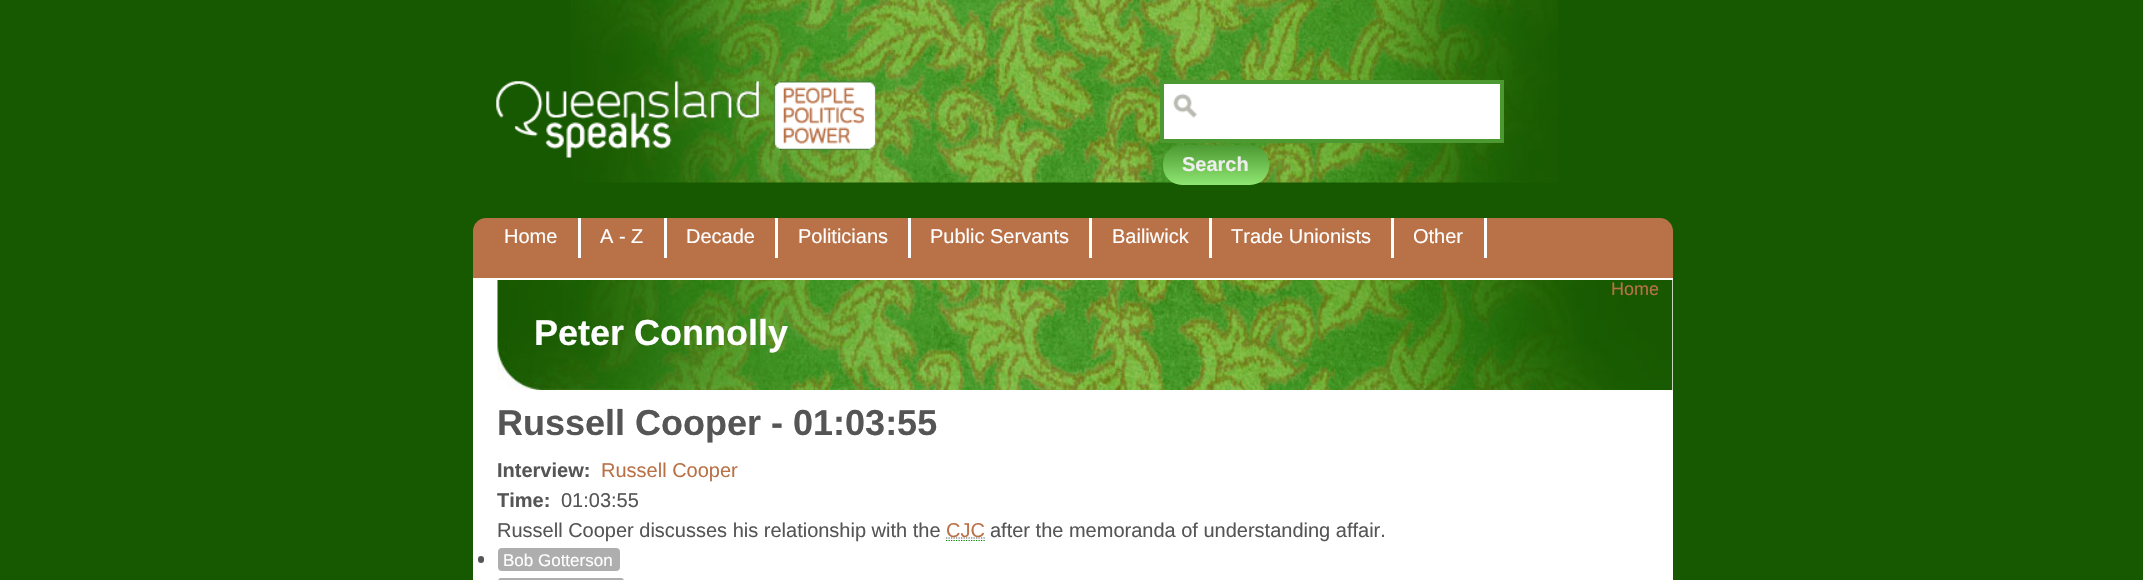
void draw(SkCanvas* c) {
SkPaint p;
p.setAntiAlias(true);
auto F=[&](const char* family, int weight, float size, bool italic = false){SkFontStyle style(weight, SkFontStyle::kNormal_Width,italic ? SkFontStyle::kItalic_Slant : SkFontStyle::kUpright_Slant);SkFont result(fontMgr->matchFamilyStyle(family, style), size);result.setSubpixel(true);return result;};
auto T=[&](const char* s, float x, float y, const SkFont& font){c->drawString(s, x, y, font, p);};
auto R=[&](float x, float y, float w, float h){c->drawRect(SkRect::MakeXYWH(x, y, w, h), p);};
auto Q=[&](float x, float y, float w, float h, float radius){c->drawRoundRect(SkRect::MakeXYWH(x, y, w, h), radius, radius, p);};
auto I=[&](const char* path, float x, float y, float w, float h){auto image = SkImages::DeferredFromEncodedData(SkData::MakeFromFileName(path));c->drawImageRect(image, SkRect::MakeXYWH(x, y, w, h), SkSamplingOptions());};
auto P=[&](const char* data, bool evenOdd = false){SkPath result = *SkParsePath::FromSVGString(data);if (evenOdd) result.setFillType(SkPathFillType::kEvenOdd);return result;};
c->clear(0xff175900);
I("1.png",571,0,987,183);
I("2.png",496,81,380,77);
p.setColor(0xffffffff);
R(1164,84,336,55);
I("3.png",1173,93,25,25);
p.setStroke(true);
p.setStrokeWidth(4);
p.setColor(0xff4c9932);
c->drawRect(SkRect::MakeXYWH(1162,82,340,59),p);
p.setStroke(false);
{
const SkColor colors[] = {0xff4c9932,0xff8fe672};
const float stops[] = {0,1};
const SkPoint ends[] = {{1163,145}, {1163,185}};
p.setShader(SkGradientShader::MakeLinear(ends, colors, stops, 2, SkTileMode::kClamp));
p.setAlpha(255);
}
Q(1163,145,106,40,19);
auto f1 = F("Liberation Sans",700,20);
p.setShader(nullptr);
p.setColor(0xffeeeeee);
T("Search",1182,171,f1);
p.setColor(0xffb97147);
c->drawPath(P("M486 218h1174c7 0 13 6 13 13v49h-1200v-49c0-7 6-13 13-13z"),p);
p.setColor(0xffffffff);
R(473,278,1200,302);
R(578,218,3,40);
auto f2 = F("Liberation Sans",400,20);
T("Home",504,243,f2);
R(664,218,3,40);
T("A - Z",600,243,f2);
R(775,218,3,40);
T("Decade",686,243,f2);
R(908,218,3,40);
T("Politicians",798,243,f2);
R(1089,218,3,40);
T("Public Servants",930,243,f2);
R(1209,218,3,40);
T("Bailiwick",1112,243,f2);
R(1391,218,3,40);
T("Trade Unionists",1231,243,f2);
R(1484,218,3,40);
T("Other",1413,243,f2);
I("4.png",497,280,1176,110);
auto f3 = F("Liberation Sans",400,18);
p.setColor(0xffb97147);
T("Home",1611,295,f3);
auto f4 = F("Liberation Sans",700,36);
p.setColor(0xffffffff);
T("Peter Connolly",534,345,f4);
p.setColor(0xff555555);
T("Russell Cooper - 01:03:55",497,435,f4);
T("Interview:",497,477,f1);
p.setColor(0xffb97147);
T("Russell Cooper",601,477,f2);
p.setColor(0xff555555);
T("Time:",497,507,f1);
T("01:03:55",561,507,f2);
T("Russell Cooper discusses his relationship with the",497,537,f2);
p.setStroke(true);
p.setStrokeWidth(1.2);
p.setPathEffect(SkDashPathEffect::Make({{1.25f,1.25f}}, 0));
c->drawPath(P("M946 538h39"),p);
p.setPathEffect(nullptr);
p.setStroke(false);
p.setColor(0xffb97147);
T("CJC",946,537,f2);
p.setStroke(true);
p.setColor(0xff008800);
p.setPathEffect(SkDashPathEffect::Make({{1.25f,1.25f}}, 0));
c->drawPath(P("M946 540.5h39"),p);
p.setPathEffect(nullptr);
p.setStroke(false);
p.setColor(0xff555555);
T("after the memoranda of understanding affair.",990,537,f2);
Q(478,556,6,7,3);
p.setColor(0xffaeaeaf);
Q(498,548,122,23,4);
auto f5 = F("Liberation Sans",400,17);
p.setColor(0xffffffff);
T("Bob Gotterson",503,566,f5);
p.setColor(0xffaeaeaf);
Q(498,578,126,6,4);
}
